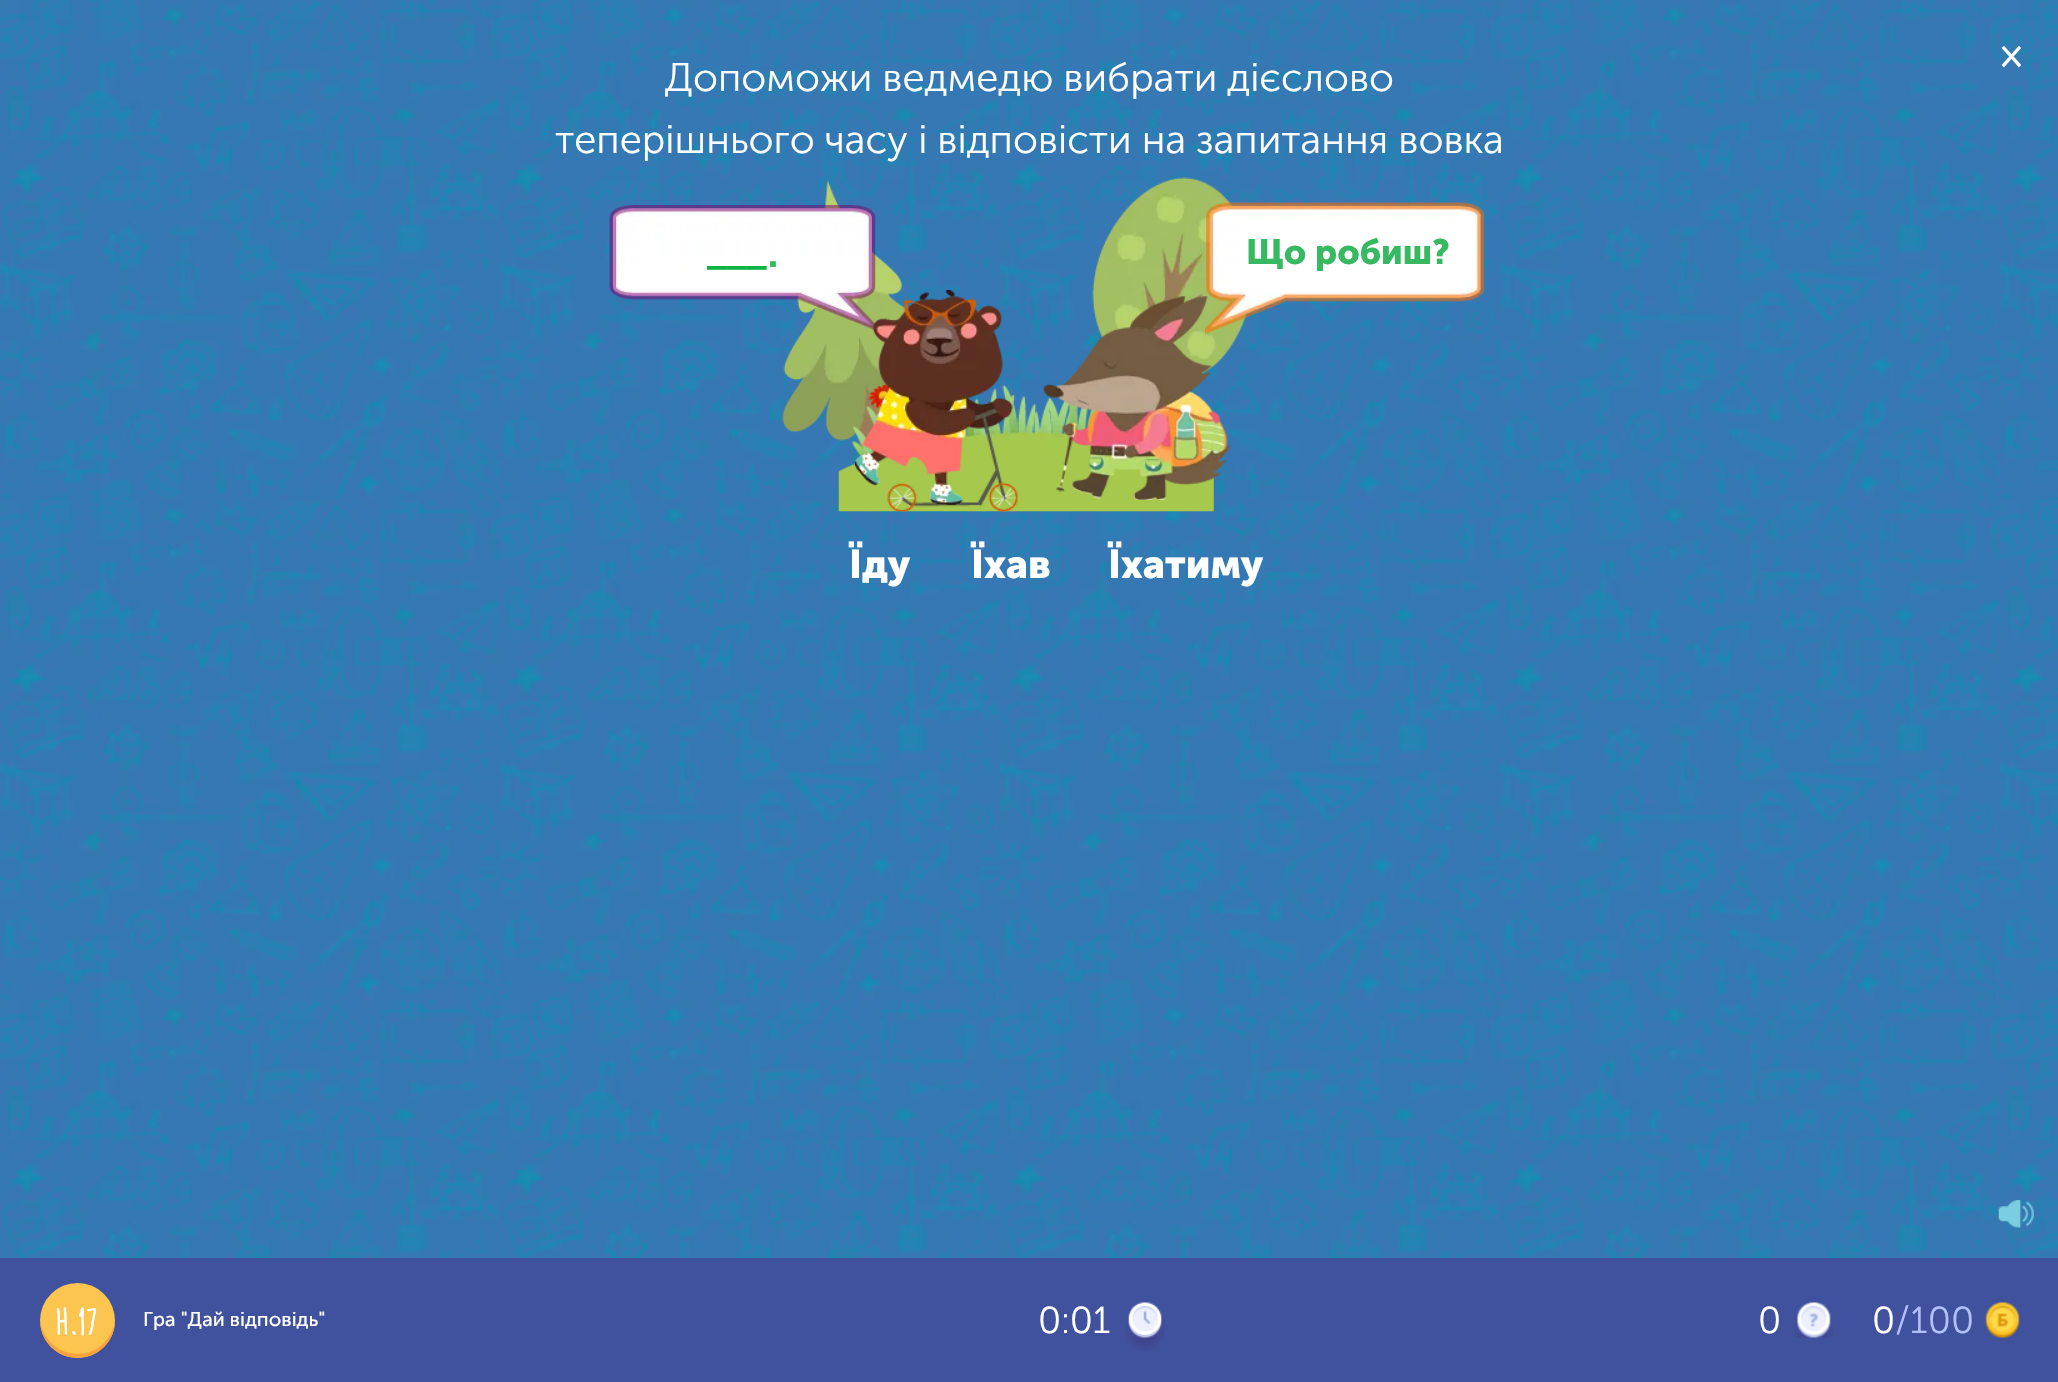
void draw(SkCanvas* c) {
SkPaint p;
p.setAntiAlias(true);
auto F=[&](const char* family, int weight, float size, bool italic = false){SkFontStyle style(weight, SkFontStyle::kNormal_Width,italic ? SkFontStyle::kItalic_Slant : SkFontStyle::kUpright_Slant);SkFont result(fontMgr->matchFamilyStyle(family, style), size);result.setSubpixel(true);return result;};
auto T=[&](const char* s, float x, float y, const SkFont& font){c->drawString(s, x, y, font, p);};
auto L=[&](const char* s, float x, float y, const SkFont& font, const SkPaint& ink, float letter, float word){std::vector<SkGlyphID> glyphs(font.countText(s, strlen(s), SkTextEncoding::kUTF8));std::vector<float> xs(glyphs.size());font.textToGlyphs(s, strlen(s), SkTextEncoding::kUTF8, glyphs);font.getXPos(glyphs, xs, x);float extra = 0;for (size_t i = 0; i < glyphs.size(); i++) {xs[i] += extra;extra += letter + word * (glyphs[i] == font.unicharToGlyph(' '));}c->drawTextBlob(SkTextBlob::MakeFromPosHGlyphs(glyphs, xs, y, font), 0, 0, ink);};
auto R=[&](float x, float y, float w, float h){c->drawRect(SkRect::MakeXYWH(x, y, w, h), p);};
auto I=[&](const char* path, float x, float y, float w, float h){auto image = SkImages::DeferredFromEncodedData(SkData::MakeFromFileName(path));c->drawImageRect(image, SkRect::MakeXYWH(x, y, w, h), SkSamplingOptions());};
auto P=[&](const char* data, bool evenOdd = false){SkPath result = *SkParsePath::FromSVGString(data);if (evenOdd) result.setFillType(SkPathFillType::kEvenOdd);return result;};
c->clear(0xffffffff);
I("1.png",0,0,2058,1258);
auto f1 = F("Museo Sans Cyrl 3",700,35);
p.setColor(0xffffffff);
T("×",2001,67,f1);
auto f2 = F("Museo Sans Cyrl",300,40);
T("Допоможи ведмедю вибрати дієслово",665,91,f2);
T("теперішнього часу і відповісти на запитання вовка",555,153,f2);
I("2.png",782,180,127,278);
I("3.png",1092,177,156,198);
I("4.png",1205,202,280,133);
I("5.png",609,205,267,125);
auto f3 = F("Museo Sans Cyrl",700,35);
p.setColor(0xff37b962);
T("Що робиш?",1246,264,f3);
T(".",768,267,f3);
auto f4 = F("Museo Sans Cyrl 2",700,35);
p.setColor(0xff0ab442);
L("___",706,267,f4,p,-1,0);
I("8.png",838,382,376,130);
I("6.png",855,290,163,222);
I("7.png",1043,296,189,204);
auto f5 = F("Museo Sans Cyrl",700,40);
p.setColor(0xffffffff);
T("Їду",849,578,f5);
T("Їхав",971,578,f5);
T("Їхатиму",1108,578,f5);
I("9.png",1998,1200,36,28);
p.setColor(0xff40529e);
R(0,1258,2058,124);
p.setColor(0xfffcc550);
c->drawCircle(77.5,1320.5,37.5,p);
p.setColor(0xfffda13a);
c->drawPath(P("M40 1318c0 8 2 17 6 23c22 32 71 15 69-23c-1 20-18 36-37 36c-20 0-37-16-38-36z"),p);
auto f6 = F("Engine",400,37.5);
p.setColor(0xffffffff);
T("Н.17",55,1335,f6);
auto f7 = F("Museo Sans Cyrl",400,20);
T("Гра \"Дай відповідь\"",143,1326,f7);
auto f8 = F("Museo Sans Cyrl",300,37.5);
T("0:01",1038,1333,f8);
I("10.png",1125,1302,40,49);
T("0",1758,1333,f8);
I("11.png",1794,1302,40,36);
T("0",1872,1333,f8);
p.setColor(0xffb1bffc);
T("/100",1895,1333,f8);
I("12.png",1985,1302,35,36);
}
